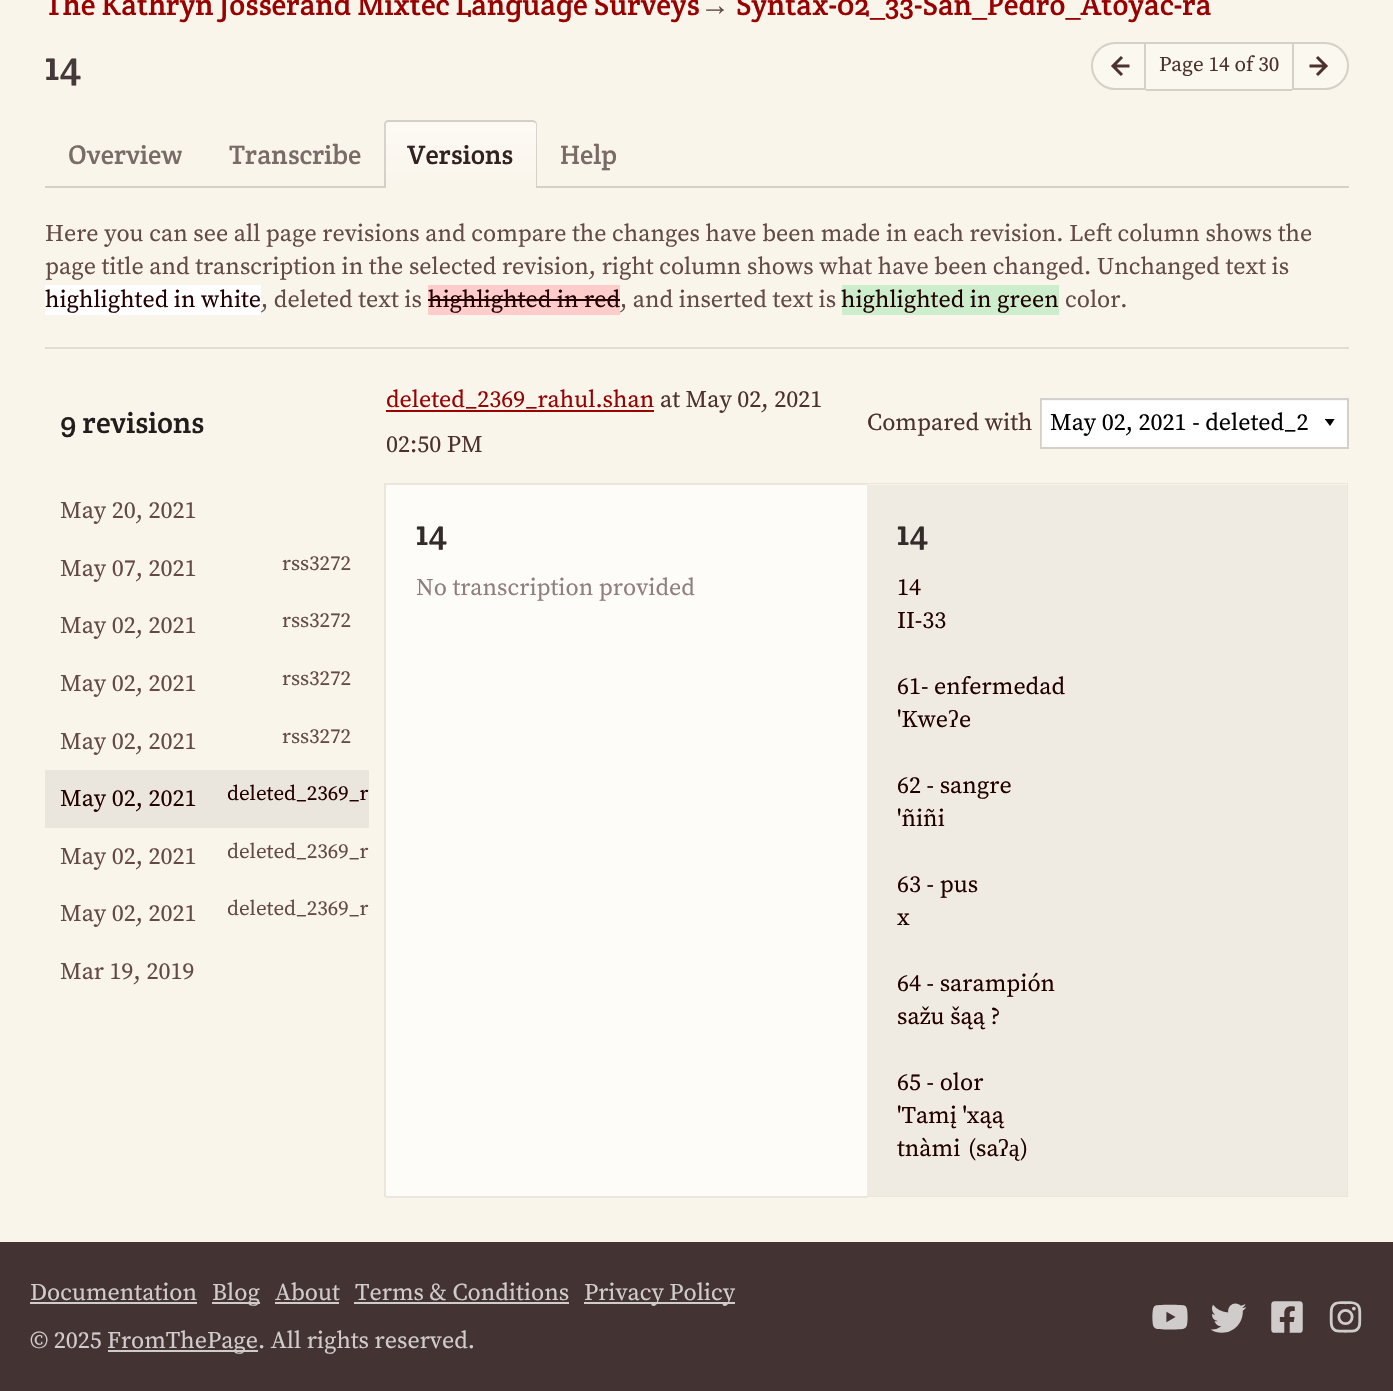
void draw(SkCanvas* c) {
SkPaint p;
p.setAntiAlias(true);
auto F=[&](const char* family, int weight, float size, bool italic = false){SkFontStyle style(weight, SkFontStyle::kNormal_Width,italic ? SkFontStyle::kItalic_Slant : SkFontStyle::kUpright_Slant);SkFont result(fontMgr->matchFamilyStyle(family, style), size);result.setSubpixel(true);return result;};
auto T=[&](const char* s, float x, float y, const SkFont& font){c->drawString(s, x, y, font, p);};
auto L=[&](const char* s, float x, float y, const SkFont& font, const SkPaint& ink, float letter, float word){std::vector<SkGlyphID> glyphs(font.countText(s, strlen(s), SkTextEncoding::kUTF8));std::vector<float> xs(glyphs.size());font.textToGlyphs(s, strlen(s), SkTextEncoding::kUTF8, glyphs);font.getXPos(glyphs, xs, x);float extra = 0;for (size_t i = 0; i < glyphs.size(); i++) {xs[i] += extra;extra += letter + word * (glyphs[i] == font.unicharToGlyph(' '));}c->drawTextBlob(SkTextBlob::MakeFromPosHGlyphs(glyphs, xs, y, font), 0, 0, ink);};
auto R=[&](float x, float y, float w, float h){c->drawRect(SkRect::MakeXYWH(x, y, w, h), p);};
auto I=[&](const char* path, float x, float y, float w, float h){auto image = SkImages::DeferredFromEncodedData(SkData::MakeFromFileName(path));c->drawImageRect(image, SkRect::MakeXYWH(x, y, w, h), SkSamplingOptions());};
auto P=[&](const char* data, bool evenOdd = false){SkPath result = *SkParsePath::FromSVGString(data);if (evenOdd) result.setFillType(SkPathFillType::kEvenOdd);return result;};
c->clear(0xfffaf5eb);
auto f1 = F("Crete Round",400,30);
p.setColor(0xff990000);
T("The Kathryn Josserand Mixtec Language Surveys",45,15,f1);
auto f2 = F("Liberation Serif",400,30);
p.setColor(0xff634a47);
T("→",700,15,f2);
p.setColor(0xff990000);
T("Syntax-02_33-San_Pedro_Atoyac-ra",736,15,f1);
auto f3 = F("Crete Round",400,42);
p.setColor(0xff453939);
T("14",45,80,f3);
p.setColor(0xfffbf8f0);
c->drawPath(P("M1115 43h30v46h-30c-12.5 0-23-10.5-23-23c0-12.5 10.5-23 23-23z"),p);
p.setStroke(true);
p.setStrokeWidth(2);
p.setColor(0xffd5d0c8);
c->drawPath(P("M1115 43h30v46h-30c-12.5 0-23-10.5-23-23c0-12.5 10.5-23 23-23z"),p);
I("1.png",1111,56,19,20);
p.setStroke(false);
p.setColor(0xfffbf8f0);
R(1146,44,146,45);
p.setColor(0xffd5d0c8);
R(1146,42,146,2);
R(1146,89,146,2);
auto f4 = F("Source Serif Pro",400,21);
p.setColor(0xff4d312f);
T("Page 14 of 30",1159,71,f4);
p.setColor(0xfffbf8f0);
c->drawPath(P("M1293 43h32c12.5 0 23 10.5 23 23c0 12.5-10.5 23-23 23h-32z"),p);
p.setStroke(true);
p.setColor(0xffd5d0c8);
c->drawPath(P("M1293 43h32c12.5 0 23 10.5 23 23c0 12.5-10.5 23-23 23h-32z"),p);
I("2.png",1309,56,19,20);
p.setStroke(false);
R(45,186,1304,2);
auto f5 = F("Crete Round",400,27);
p.setColor(0xff796c68);
T("Overview",68,164,f5);
T("Transcribe",229,164,f5);
c->save();
c->clipPath(P("M389 120h143c3 0 5 2 5 5v63h-153v-63c0-3 2-5 5-5z"),true);
{
const SkColor colors[] = {0xfffdfaf5,0xfffaf5eb};
const float stops[] = {0,1};
const SkPoint ends[] = {{461,122}, {461,188}};
p.setShader(SkGradientShader::MakeLinear(ends, colors, stops, 2, SkTileMode::kClamp));
p.setAlpha(255);
}
R(384,122,153,66);
c->restore();
p.setShader(nullptr);
p.setColor(0x26000000);
c->drawPath(P("M388 120h144c3 0 5 2 5 4v64h-153v-64c0-2 2-4 4-4zm0 2h144c2 0 4 1 4 2v64h-150v-64c0-1 1-2 2-2z",true),p);
p.setColor(0xff332222);
T("Versions",407,164,f5);
p.setColor(0xff796c68);
T("Help",560,164,f5);
p.setColor(0xffe1ddd4);
R(45,347,1304,2);
auto f6 = F("Source Serif Pro",400,24);
p.setColor(0xff634a47);
T("Here you can see all page revisions and compare the changes have been made in each revision. Left column shows the",45,241,f6);
T("page title and transcription in the selected revision, right column shows what have been changed. Unchanged text is",45,274,f6);
p.setColor(0xffffffff);
R(45,285,216,30);
p.setColor(0xff220000);
T("highlighted in white",45,307,f6);
p.setColor(0xff634a47);
T(", deleted text is",261,307,f6);
p.setColor(0xffffcccc);
R(428,285,192,30);
p.setColor(0xff220000);
T("highlighted in red",428,307,f6);
R(428,299,192,2);
p.setColor(0xff634a47);
T(", and inserted text is",620,307,f6);
p.setColor(0xffcceecc);
R(842,285,217,30);
p.setColor(0xff220000);
T("highlighted in green",841,307,f6);
p.setColor(0xff634a47);
T("color.",1065,307,f6);
p.setColor(0xff231d1d);
T("9 revisions",60,433,f1);
p.setColor(0xff990000);
T("deleted_2369_rahul.shan",386,407,f6);
R(386,410,268,2);
p.setColor(0xff4d312f);
T("at May 02, 2021",660,407,f6);
T("02:50 PM",386,452,f6);
T("Compared with",867,430,f6);
p.setColor(0xffffffff);
R(1041,401,306,46);
c->save();
c->clipRect(SkRect::MakeXYWH(1325,419,22,7));
p.setColor(0xff000000);
c->drawPath(P("M1324.5 418.5h10.5l-5 7.5z"),p);
c->restore();
p.setColor(0xfff7f7f7);
R(1041,399,306,2);
p.setStroke(true);
p.setColor(0x26000000);
c->drawRect(SkRect::MakeXYWH(1041,399,307,49),p);
p.setStroke(false);
p.setColor(0xff000000);
T("May 02, 2021 - deleted_2",1050,430,f6);
p.setColor(0xffebe6dd);
R(384,483,2,714);
p.setColor(0xff634a47);
T("May 20, 2021",60,518,f6);
T("May 07, 2021",60,576,f6);
T("rss3272",282,570,f4);
T("May 02, 2021",60,633,f6);
T("rss3272",282,627,f4);
T("May 02, 2021",60,691,f6);
T("rss3272",282,685,f4);
T("May 02, 2021",60,749,f6);
T("rss3272",282,743,f4);
p.setColor(0xffebe6dd);
R(45,770,324,58);
p.setColor(0xff220000);
T("May 02, 2021",60,806,f6);
T("deleted_2369_r",227,800,f4);
p.setColor(0xff634a47);
T("May 02, 2021",60,864,f6);
T("deleted_2369_r",227,858,f4);
T("May 02, 2021",60,921,f6);
T("deleted_2369_r",227,915,f4);
T("Mar 19, 2019",60,979,f6);
p.setColor(0xfffefcf9);
R(386,485,481,711);
p.setColor(0xffebe6dd);
R(386,483,481,2);
R(386,1196,481,2);
auto f7 = F("Crete Round",400,36);
p.setColor(0xff342b2b);
T("14",416,545,f7);
p.setColor(0xff907e7d);
T("No transcription provided",416,595,f6);
p.setColor(0xfff0ebe2);
R(867,485,480,711);
p.setColor(0xffebe6dd);
c->drawPath(P("M867 483h481l-1 1h-480z"),p);
p.setColor(0x0f000000);
c->drawPath(P("M1348 483v714l-1-1v-712z"),p);
c->drawPath(P("M1348 1197h-481v-1h480z"),p);
p.setColor(0xff342b2b);
T("14",897,545,f7);
p.setColor(0xff220000);
T("14",897,595,f6);
T("II-33",897,628,f6);
T("61- enfermedad",897,694,f6);
T("'Kwe",897,727,f6);
auto f8 = F("Liberation Serif",400,24);
T("ʔ",948,727,f8);
T("e",959,727,f6);
T("62 - sangre",897,793,f6);
T("'ñiñi",897,826,f6);
T("63 - pus",897,892,f6);
T("x",897,925,f6);
T("64 - sarampión",897,991,f6);
T("sažu šąą ?",897,1024,f6);
T("65 - olor",897,1090,f6);
T("'Tamį 'xąą",897,1123,f6);
L("tnàmi (sa",897,1156,f6,p,0,2);
T("ʔą",998,1156,f8);
T(")",1020,1156,f6);
p.setColor(0xff443333);
R(0,1242,1393,149);
p.setColor(0xffd0cccc);
T("Documentation",30,1300,f6);
R(30,1302,167,2);
R(212,1302,48,2);
T("Blog",212,1300,f6);
T("About",275,1300,f6);
R(275,1302,64,2);
T("Terms & Conditions",355,1300,f6);
R(354,1302,215,2);
R(584,1302,151,2);
T("Privacy Policy",584,1300,f6);
T("© 2025",30,1348,f6);
R(108,1350,150,2);
T("FromThePage. All rights reserved.",107,1348,f6);
I("3.png",1152,1304,36,26);
I("4.png",1211,1303,36,30);
I("5.png",1271,1301,32,32);
I("6.png",1329,1301,33,32);
}
